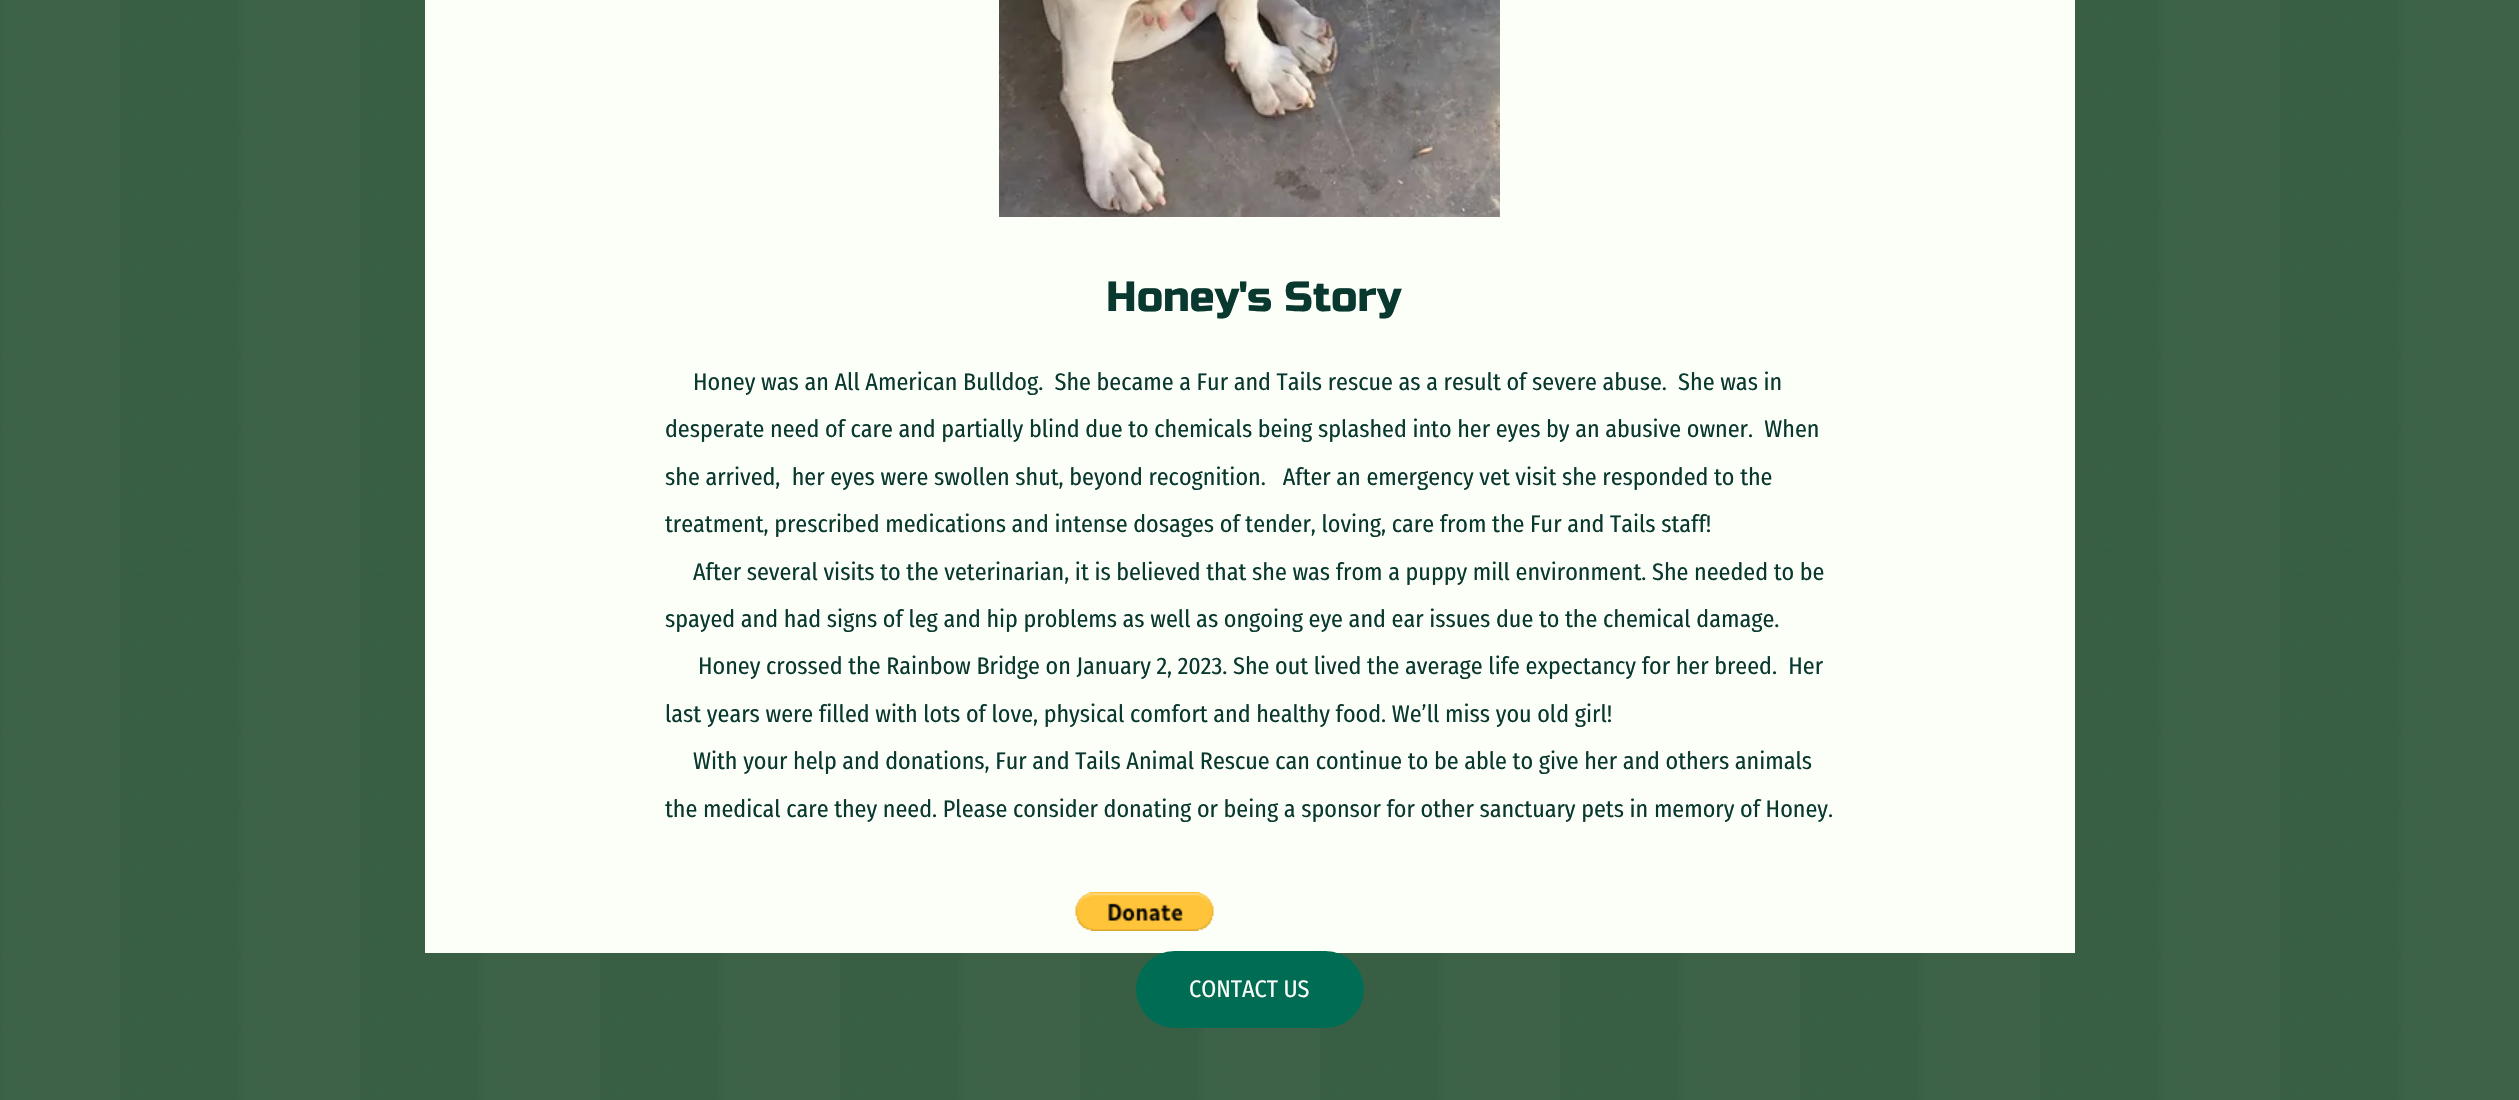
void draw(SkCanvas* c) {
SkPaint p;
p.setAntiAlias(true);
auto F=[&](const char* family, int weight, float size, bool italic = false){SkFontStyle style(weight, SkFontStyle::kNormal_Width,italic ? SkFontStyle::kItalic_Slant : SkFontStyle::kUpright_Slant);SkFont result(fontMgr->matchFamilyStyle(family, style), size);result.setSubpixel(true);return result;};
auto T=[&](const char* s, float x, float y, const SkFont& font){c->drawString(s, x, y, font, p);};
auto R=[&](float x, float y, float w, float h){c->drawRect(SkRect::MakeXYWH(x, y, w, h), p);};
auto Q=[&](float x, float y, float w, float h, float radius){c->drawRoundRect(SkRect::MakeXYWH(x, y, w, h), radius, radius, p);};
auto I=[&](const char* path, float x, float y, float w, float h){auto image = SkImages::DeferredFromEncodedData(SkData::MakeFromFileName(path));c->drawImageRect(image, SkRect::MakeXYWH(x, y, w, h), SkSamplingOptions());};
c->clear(0xffffffff);
I("1.png",0,0,2519,1100);
p.setColor(0xfffcfef8);
R(425,0,1650,953);
I("2.png",999,0,501,217);
auto f1 = F("Russo One",400,42);
p.setColor(0xff09382e);
T("Honey's Story",1106,311,f1);
auto f2 = F("Fira Sans Condensed",400,24);
T("Honey was an All American Bulldog.  She became a Fur and Tails rescue as a result of severe abuse.  She was in",693,390,f2);
T("desperate need of care and partially blind due to chemicals being splashed into her eyes by an abusive owner.  When",665,437,f2);
T("she arrived,  her eyes were swollen shut, beyond recognition.   After an emergency vet visit she responded to the",665,485,f2);
T("treatment, prescribed medications and intense dosages of tender, loving, care from the Fur and Tails staff!",665,532,f2);
T("After several visits to the veterinarian, it is believed that she was from a puppy mill environment. She needed to be",693,580,f2);
T("spayed and had signs of leg and hip problems as well as ongoing eye and ear issues due to the chemical damage.",665,627,f2);
T("Honey crossed the Rainbow Bridge on January 2, 2023. She out lived the average life expectancy for her breed.  Her",698,674,f2);
T("last years were filled with lots of love, physical comfort and healthy food. We’ll miss you old girl!",665,722,f2);
T("With your help and donations, Fur and Tails Animal Rescue can continue to be able to give her and others animals",693,769,f2);
T("the medical care they need. Please consider donating or being a sponsor for other sanctuary pets in memory of Honey.",665,817,f2);
I("3.png",1075,892,139,39);
p.setColor(0xff006c54);
Q(1136,951,228,77,38.5);
p.setColor(0xfffcfef8);
T("CONTACT US",1189,997,f2);
}
